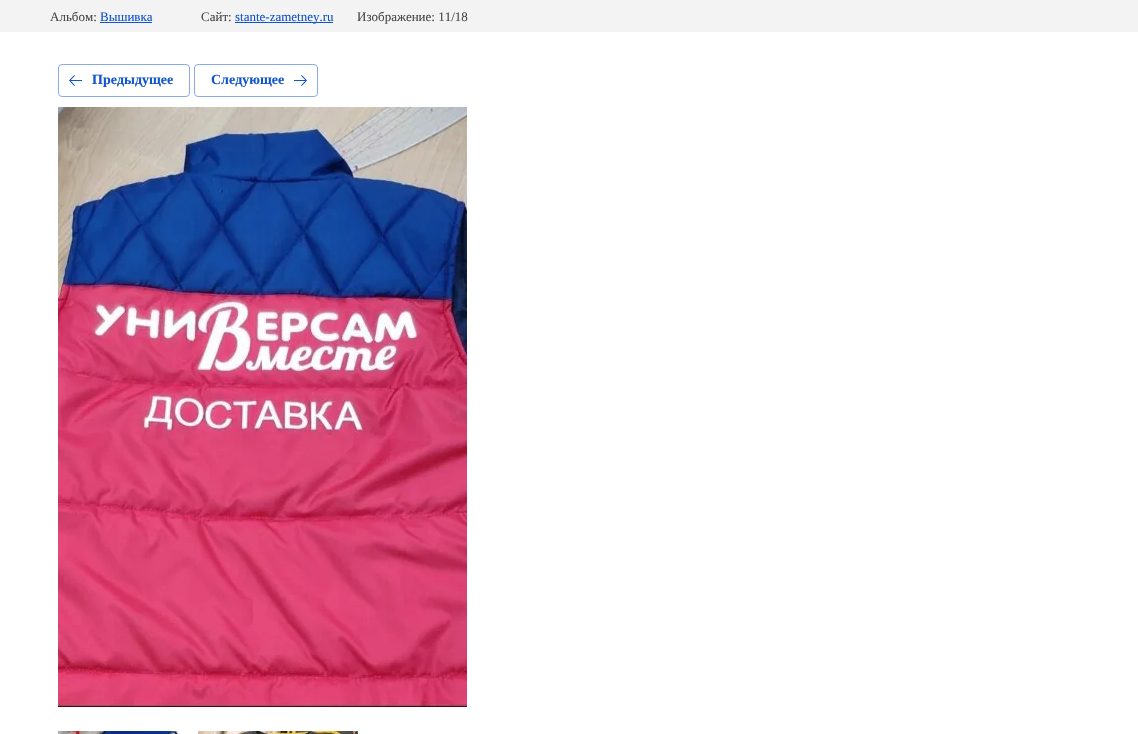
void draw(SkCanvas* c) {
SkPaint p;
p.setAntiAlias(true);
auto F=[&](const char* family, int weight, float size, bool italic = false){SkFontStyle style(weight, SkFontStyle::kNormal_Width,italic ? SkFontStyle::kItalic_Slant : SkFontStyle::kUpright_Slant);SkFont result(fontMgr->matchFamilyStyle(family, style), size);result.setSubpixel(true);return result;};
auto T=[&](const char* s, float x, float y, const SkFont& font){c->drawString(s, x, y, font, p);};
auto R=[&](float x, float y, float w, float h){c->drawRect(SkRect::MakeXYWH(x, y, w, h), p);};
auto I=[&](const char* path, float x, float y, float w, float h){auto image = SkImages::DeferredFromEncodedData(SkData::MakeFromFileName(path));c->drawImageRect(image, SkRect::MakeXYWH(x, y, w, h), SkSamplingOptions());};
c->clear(0xffffffff);
p.setColor(0xfff3f3f3);
R(0,0,1138,32);
auto f1 = F("Liberation Serif",400,13);
p.setColor(0xff484848);
T("Альбом:",50,21,f1);
p.setColor(0xff1155cc);
T("Вышивка",100,21,f1);
R(100,22,52,1);
p.setColor(0xff484848);
T("Сайт:",201,21,f1);
p.setColor(0xff1155cc);
R(235,22,98,1);
T("stante-zametney.ru",235,21,f1);
p.setColor(0xff484848);
T("Изображение: 11/18",357,21,f1);
p.setStroke(true);
p.setStrokeWidth(1);
p.setColor(0xff88aae6);
c->drawRoundRect(SkRect::MakeXYWH(58.5,64.5,131,32),3.5,3.5,p);
I("1.png",69,75,13,11);
auto f2 = F("Liberation Serif",700,14);
p.setStroke(false);
p.setColor(0xff1155cc);
T("Предыдущее",92,84,f2);
p.setStroke(true);
p.setColor(0xff88aae6);
c->drawRoundRect(SkRect::MakeXYWH(194.5,64.5,123,32),3.5,3.5,p);
p.setStroke(false);
p.setColor(0xff1155cc);
T("Следующее",211,84,f2);
I("2.png",294,75,13,11);
I("3.png",58,107,409,600);
I("4.png",58,731,120,3);
I("5.png",198,731,160,3);
}
